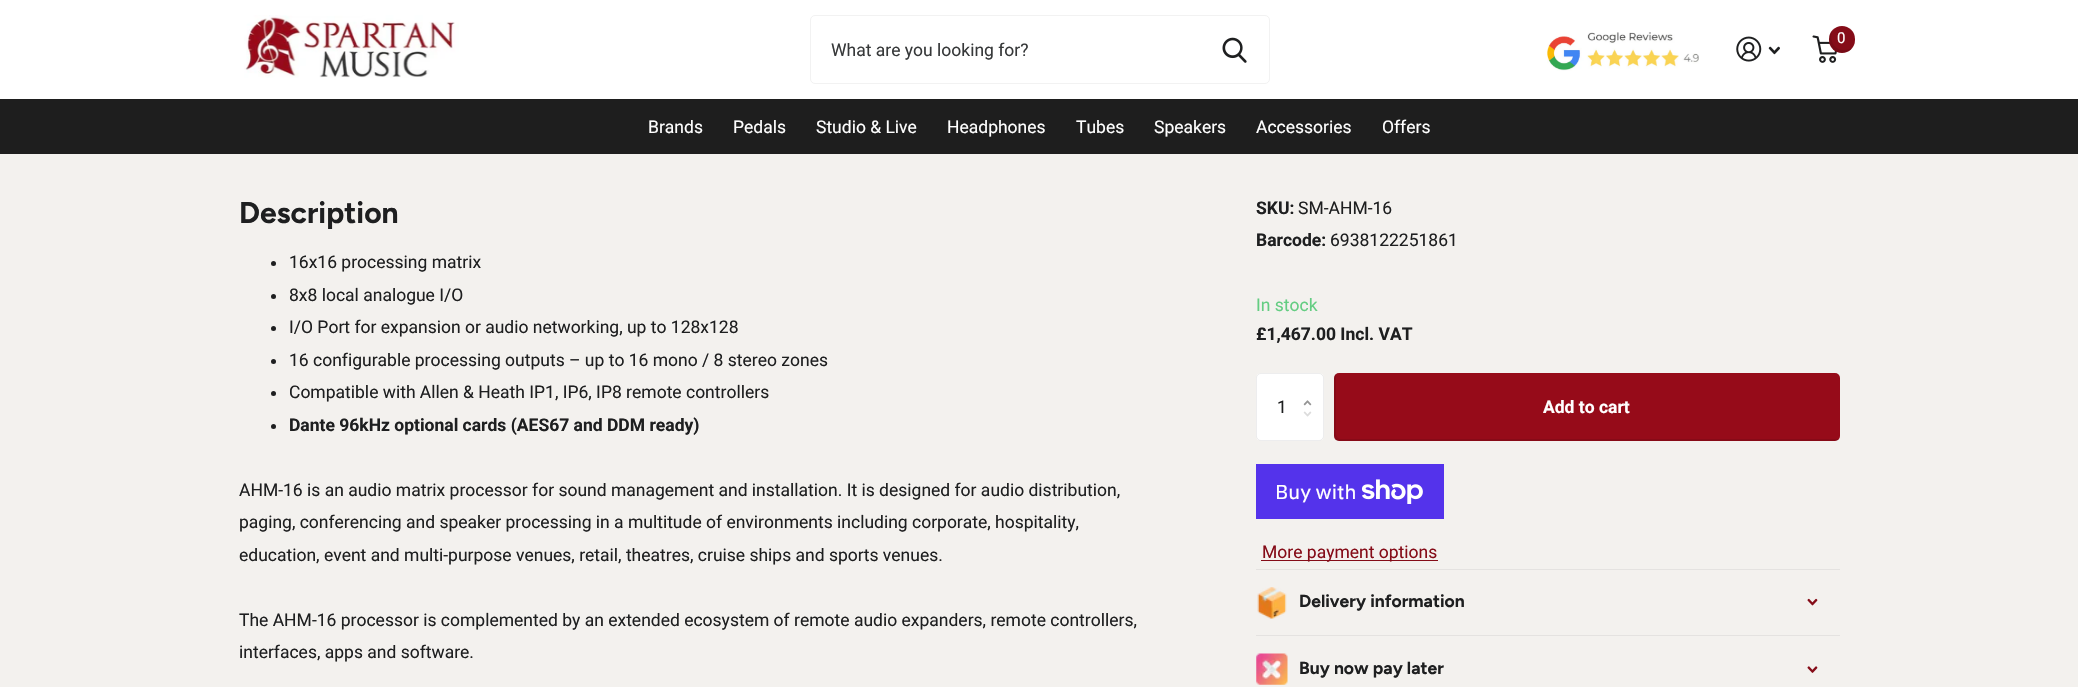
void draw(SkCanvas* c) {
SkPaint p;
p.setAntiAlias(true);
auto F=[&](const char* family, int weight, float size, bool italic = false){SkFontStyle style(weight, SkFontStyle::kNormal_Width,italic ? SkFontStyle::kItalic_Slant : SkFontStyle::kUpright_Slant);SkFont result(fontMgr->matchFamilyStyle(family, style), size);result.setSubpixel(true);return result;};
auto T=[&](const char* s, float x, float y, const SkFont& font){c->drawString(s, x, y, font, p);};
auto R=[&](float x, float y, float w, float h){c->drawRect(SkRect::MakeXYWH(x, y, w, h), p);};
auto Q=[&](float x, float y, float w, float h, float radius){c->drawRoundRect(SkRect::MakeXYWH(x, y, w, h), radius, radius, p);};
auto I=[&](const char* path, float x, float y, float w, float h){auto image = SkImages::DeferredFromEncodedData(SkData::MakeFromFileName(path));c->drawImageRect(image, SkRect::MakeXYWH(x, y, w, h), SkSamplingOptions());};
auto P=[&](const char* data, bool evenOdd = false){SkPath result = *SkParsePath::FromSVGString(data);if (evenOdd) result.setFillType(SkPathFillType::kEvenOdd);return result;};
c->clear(0xfff3f1ee);
p.setColor(0xffffffff);
R(0,0,2078,99);
I("1.png",244,15,215,63);
I("2.png",1547,32,152,39);
I("3.png",1736,36,26,26);
I("4.png",1768,46,12,9);
I("5.png",1812,35,25,28);
p.setColor(0xff850c18);
Q(1829,26,26,27,13);
p.setColor(0x1a000000);
c->drawPath(P("M1853 47c-2.5 2-5.5 3-9 3c-12 0-15.5-13.5-10.5-21c-5.5 5-6 14.5-.5 20c5.5 6 15.5 5 20-2z"),p);
auto f1 = F("Roboto",400,15);
p.setColor(0xffffffff);
T("0",1837,43,f1);
p.setStroke(true);
p.setStrokeWidth(1);
p.setColor(0xfff2f2f2);
c->drawRoundRect(SkRect::MakeXYWH(810.5,15.5,459,68),4.5,4.5,p);
auto f2 = F("Roboto",400,17.5);
p.setStroke(false);
p.setColor(0xff37393a);
T("What are you looking for?",831,56,f2);
I("6.png",1222,37,25,26);
p.setColor(0xff1e1e1e);
R(0,99,2078,55);
p.setColor(0xffffffff);
T("Brands",648,133,f2);
T("Pedals",733,133,f2);
T("Studio & Live",816,133,f2);
T("Headphones",947,133,f2);
T("Tubes",1076,133,f2);
T("Speakers",1154,133,f2);
T("Accessories",1256,133,f2);
T("Offers",1382,133,f2);
auto f3 = F("Figtree",700,30);
p.setColor(0xff1e1f20);
T("Description",239,223,f3);
c->drawCircle(273.5,263.5,2.5,p);
T("16x16 processing matrix",289,268,f2);
c->drawCircle(273.5,296.5,2.5,p);
T("8x8 local analogue I/O",289,301,f2);
c->drawCircle(273.5,328.5,2.5,p);
T("I/O Port for expansion or audio networking, up to 128x128",289,333,f2);
c->drawCircle(273.5,361.5,2.5,p);
T("16 configurable processing outputs – up to 16 mono / 8 stereo zones",289,366,f2);
c->drawCircle(273.5,393.5,2.5,p);
T("Compatible with Allen & Heath IP1, IP6, IP8 remote controllers",289,398,f2);
c->drawCircle(273.5,426.5,2.5,p);
auto f4 = F("Roboto",700,17.5);
T("Dante 96kHz optional cards (AES67 and DDM ready)",289,431,f4);
T("AHM-16 is an audio matrix processor for sound management and installation. It is designed for audio distribution,",239,496,f2);
T("paging, conferencing and speaker processing in a multitude of environments including corporate, hospitality,",239,528,f2);
T("education, event and multi-purpose venues, retail, theatres, cruise ships and sports venues.",239,561,f2);
T("The AHM-16 processor is complemented by an extended ecosystem of remote audio expanders, remote controllers,",239,626,f2);
T("interfaces, apps and software.",239,658,f2);
T("SKU:",1256,214,f4);
T("SM-AHM-16",1298,214,f2);
T("Barcode:",1256,246,f4);
T("6938122251861",1330,246,f2);
p.setColor(0xff64cd82);
T("In stock",1256,311,f2);
p.setColor(0xff1e1f20);
T("£1,467.00 Incl. VAT",1256,340,f4);
p.setColor(0xffffffff);
Q(1256,373,68,68,5);
p.setStroke(true);
p.setColor(0x141e1f20);
c->drawRoundRect(SkRect::MakeXYWH(1256.5,373.5,67,67),4.5,4.5,p);
p.setStroke(false);
p.setColor(0xff1e1f20);
T("1",1277,413,f2);
I("7.png",1303,400,9,6);
I("8.png",1303,411,9,6);
p.setColor(0xff960b19);
Q(1334,373,506,68,5);
p.setColor(0x1a000000);
c->drawPath(P("M1336 374c-1 1-2 2-2 4v58c0 3 2 5 5 5h496c2 0 3-1 4-2h-498c-7 0-5-11-5-15z"),p);
p.setColor(0xffffffff);
T("Add to cart",1543,413,f4);
p.setColor(0xff5433eb);
R(1256,464,188,55);
auto f5 = F("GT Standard",400,20);
p.setColor(0xffffffff);
T("Buy with",1275,499,f5);
I("9.png",1361,479,62,25);
p.setColor(0xff850c18);
R(1261,560,177,1);
T("More payment options",1262,558,f2);
p.setColor(0xffe4e2e0);
R(1256,569,584,1);
R(1256,635,584,1);
I("10.png",1257,587,30,32);
auto f6 = F("Figtree",700,17.5);
p.setColor(0xff1e1f20);
T("Delivery information",1299,607,f6);
I("11.png",1807,598,11,8);
I("12.png",1256,653,32,32);
T("Buy now pay later",1299,674,f6);
I("13.png",1807,666,11,7);
}
